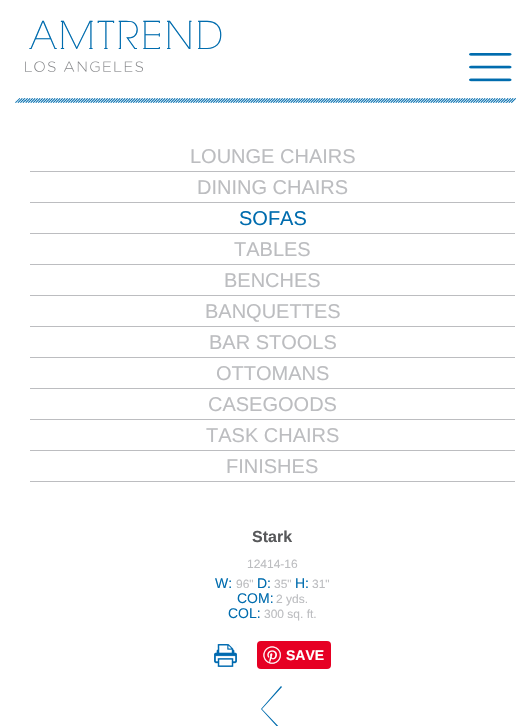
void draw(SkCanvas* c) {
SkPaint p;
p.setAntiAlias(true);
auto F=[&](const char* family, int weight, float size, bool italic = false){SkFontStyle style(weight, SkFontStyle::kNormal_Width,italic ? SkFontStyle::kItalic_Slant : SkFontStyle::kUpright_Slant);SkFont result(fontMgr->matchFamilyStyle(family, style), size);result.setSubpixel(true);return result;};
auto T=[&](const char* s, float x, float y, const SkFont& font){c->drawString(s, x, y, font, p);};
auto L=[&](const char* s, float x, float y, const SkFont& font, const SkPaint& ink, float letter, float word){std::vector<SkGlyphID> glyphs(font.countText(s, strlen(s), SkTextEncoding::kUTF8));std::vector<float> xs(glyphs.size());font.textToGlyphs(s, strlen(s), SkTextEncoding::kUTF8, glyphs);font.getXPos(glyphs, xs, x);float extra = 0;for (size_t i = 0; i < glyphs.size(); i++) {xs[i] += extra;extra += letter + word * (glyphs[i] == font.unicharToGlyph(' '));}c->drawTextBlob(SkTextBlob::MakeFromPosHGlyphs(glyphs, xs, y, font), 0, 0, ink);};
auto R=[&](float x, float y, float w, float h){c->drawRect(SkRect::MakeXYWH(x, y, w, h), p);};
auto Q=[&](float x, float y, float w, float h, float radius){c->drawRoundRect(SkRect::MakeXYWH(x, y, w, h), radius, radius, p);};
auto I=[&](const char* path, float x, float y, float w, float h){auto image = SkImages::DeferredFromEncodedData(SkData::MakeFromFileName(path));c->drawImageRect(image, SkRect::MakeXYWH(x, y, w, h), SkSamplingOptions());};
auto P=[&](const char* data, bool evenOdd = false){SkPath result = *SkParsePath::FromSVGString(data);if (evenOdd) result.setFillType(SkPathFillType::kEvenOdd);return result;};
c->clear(0xffffffff);
auto f1 = F("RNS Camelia",300,38);
p.setColor(0xff006cae);
L("AMTREND",30,49,f1,p,3,0);
I("1.png",25,61,118,11);
I("2.png",25,98,481,5);
I("3.png",15,98,10,5);
I("4.png",506,98,10,5);
I("5.png",469,53,43,29);
p.setColor(0xffbcbdc0);
R(30,171,485,1);
auto f2 = F("Liberation Sans",400,20);
T("LOUNGE CHAIRS",190,163,f2);
R(30,202,485,1);
T("DINING CHAIRS",197,194,f2);
R(30,233,485,1);
p.setColor(0xff006cae);
T("SOFAS",239,225,f2);
p.setColor(0xffbcbdc0);
R(30,264,485,1);
T("TABLES",234,256,f2);
R(30,295,485,1);
T("BENCHES",224,287,f2);
R(30,326,485,1);
T("BANQUETTES",205,318,f2);
R(30,357,485,1);
T("BAR STOOLS",209,349,f2);
R(30,388,485,1);
T("OTTOMANS",216,380,f2);
R(30,419,485,1);
T("CASEGOODS",208,411,f2);
R(30,450,485,1);
T("TASK CHAIRS",206,442,f2);
R(30,481,485,1);
T("FINISHES",226,473,f2);
auto f3 = F("Liberation Sans",700,16);
p.setColor(0xff58595b);
T("Stark",252,542,f3);
auto f4 = F("Liberation Sans",400,12);
p.setColor(0xffbcbdc0);
T("12414-16",247,568,f4);
auto f5 = F("Liberation Sans",400,14);
p.setColor(0xff006cae);
T("W:",215,588,f5);
p.setColor(0xffbcbdc0);
T("96\"",236,588,f4);
p.setColor(0xff006cae);
T("D:",257,588,f5);
p.setColor(0xffbcbdc0);
T("35\"",274,588,f4);
p.setColor(0xff006cae);
T("H:",295,588,f5);
p.setColor(0xffbcbdc0);
T("31\"",312,588,f4);
p.setColor(0xff006cae);
T("COM:",237,603,f5);
p.setColor(0xffbcbdc0);
T("2 yds.",276,603,f4);
p.setColor(0xff006cae);
T("COL:",228,618,f5);
p.setColor(0xffbcbdc0);
T("300 sq. ft.",264,618,f4);
I("6.png",214,644,23,23);
p.setColor(0xffe60023);
Q(257,641,74,28,4);
I("7.png",263,646,18,18);
auto f6 = F("Liberation Sans",700,14);
p.setColor(0xffffffff);
T("SAVE",286,660,f6);
p.setColor(0xff006cae);
c->drawPath(P("M261 709l20-23l1 1l-20 22l20 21l-1 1z"),p);
}
